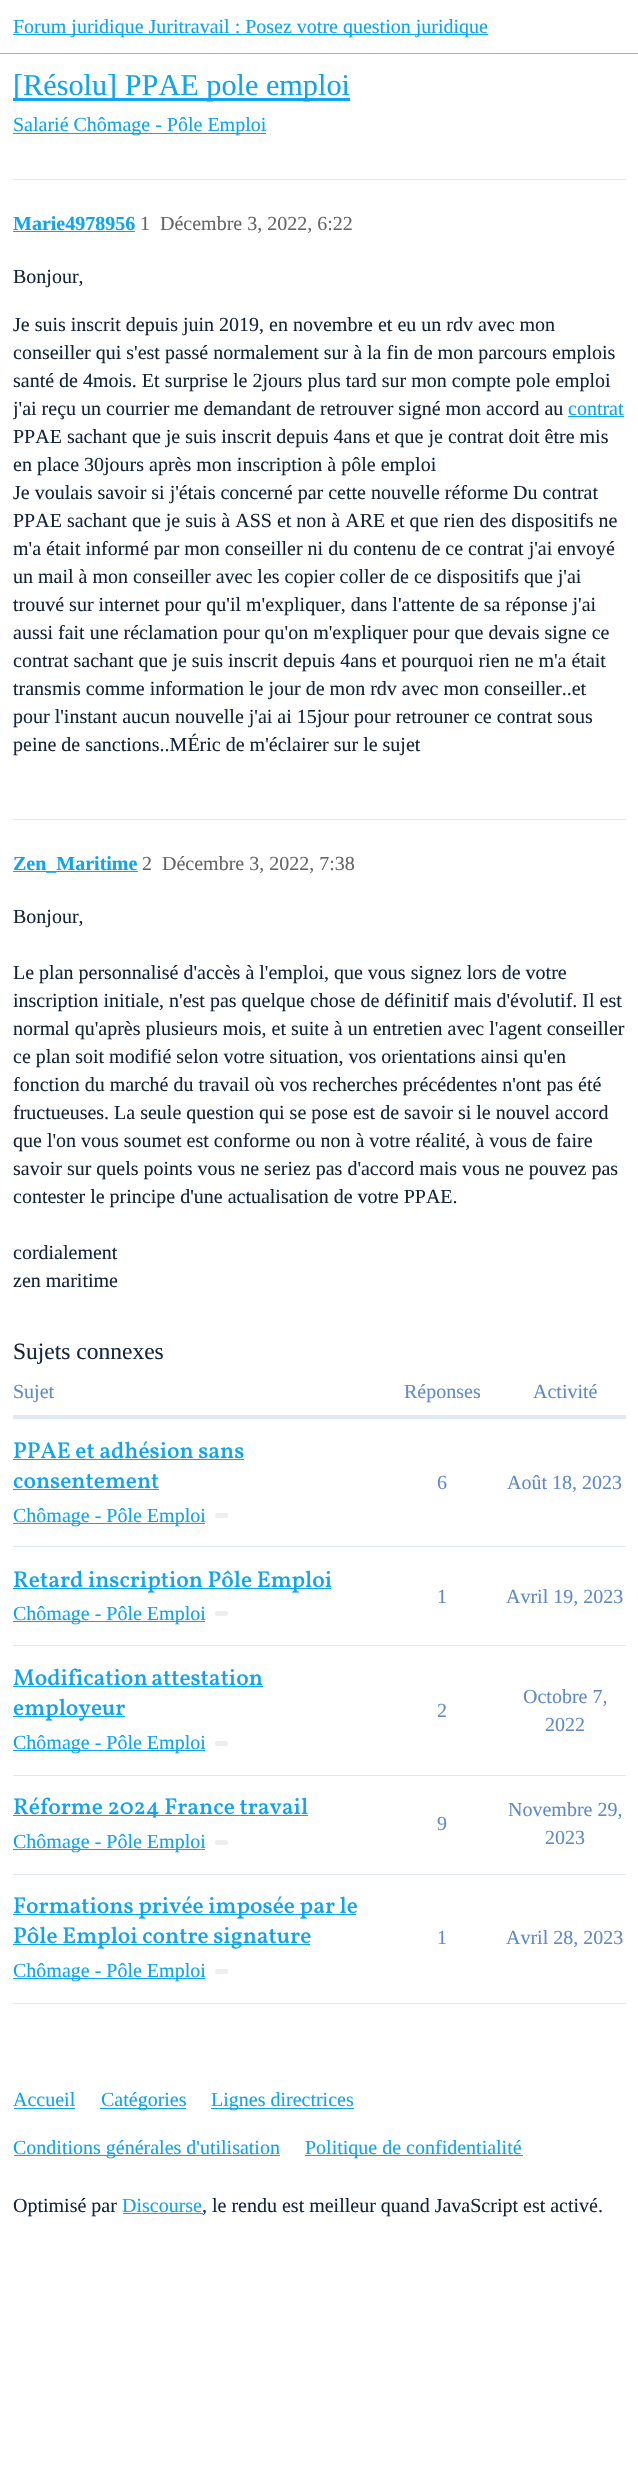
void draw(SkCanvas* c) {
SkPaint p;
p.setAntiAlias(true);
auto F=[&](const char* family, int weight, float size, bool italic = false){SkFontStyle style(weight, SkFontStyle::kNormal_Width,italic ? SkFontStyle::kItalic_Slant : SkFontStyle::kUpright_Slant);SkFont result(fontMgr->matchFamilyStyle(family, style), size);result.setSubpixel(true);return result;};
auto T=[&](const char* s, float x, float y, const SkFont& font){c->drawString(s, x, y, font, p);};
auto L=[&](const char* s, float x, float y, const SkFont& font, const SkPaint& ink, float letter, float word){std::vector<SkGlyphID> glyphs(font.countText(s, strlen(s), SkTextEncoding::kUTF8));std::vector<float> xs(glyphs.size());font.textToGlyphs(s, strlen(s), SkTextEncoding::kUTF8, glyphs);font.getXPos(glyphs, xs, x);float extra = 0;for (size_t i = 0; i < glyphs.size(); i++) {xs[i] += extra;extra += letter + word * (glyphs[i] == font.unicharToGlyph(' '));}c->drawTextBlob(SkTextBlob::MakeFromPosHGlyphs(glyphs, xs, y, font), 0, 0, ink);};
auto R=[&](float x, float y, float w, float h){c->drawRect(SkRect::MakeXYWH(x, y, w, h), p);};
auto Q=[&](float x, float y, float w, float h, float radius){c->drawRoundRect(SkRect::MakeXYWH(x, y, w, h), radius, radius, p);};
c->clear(0xffffffff);
p.setColor(0xffacadb1);
R(0,53,638,1);
p.setColor(0xff0fa4ef);
R(13,34,475,1);
auto f1 = F("Liberation Serif",400,20);
T("Forum juridique Juritravail : Posez votre question juridique",13,33,f1);
R(13,98,337,3);
auto f2 = F("Liberation Serif",400,30.25);
T("[Résolu] PPAE pole emploi",13,95,f2);
R(13,133,253,1);
T("Salarié Chômage - Pôle Emploi",13,131,f1);
p.setColor(0xffdfe8f4);
R(13,179,613,1);
auto f3 = F("Liberation Serif",700,20);
p.setColor(0xff0fa4ef);
T("Marie4978956",13,230,f3);
R(13,231,122,1);
p.setColor(0xff666666);
T("1",140,230,f1);
T("Décembre 3, 2022, 6:22",160,230,f1);
p.setColor(0xff15253d);
T("Bonjour,",13,283,f1);
T("Je suis inscrit depuis juin 2019, en novembre et eu un rdv avec mon",13,331,f1);
T("conseiller qui s'est passé normalement sur à la fin de mon parcours emplois",13,359,f1);
T("santé de 4mois. Et surprise le 2jours plus tard sur mon compte pole emploi",13,387,f1);
c->save();
c->clipRect(SkRect::MakeXYWH(13,263,613,516));
T("j'ai reçu un courrier",13,415,f1);
c->restore();
T("me demandant de retrouver signé mon accord au",174,415,f1);
p.setColor(0xff0fa4ef);
T("contrat",568,415,f1);
R(568,416,56,1);
p.setColor(0xff15253d);
T("PPAE sachant que je suis inscrit depuis 4ans et que je contrat doit être mis",13,443,f1);
T("en place 30jours après mon inscription à pôle emploi",13,471,f1);
T("Je voulais savoir si j'étais concerné par cette nouvelle réforme Du contrat",13,499,f1);
T("PPAE sachant que je suis à ASS et non à ARE et que rien des dispositifs ne",13,527,f1);
T("m'a était informé par mon conseiller ni du contenu de ce contrat j'ai envoyé",13,555,f1);
T("un mail à mon conseiller avec les copier coller de ce dispositifs que j'ai",13,583,f1);
T("trouvé sur internet pour qu'il m'expliquer, dans l'attente de sa réponse j'ai",13,611,f1);
T("aussi fait une réclamation pour qu'on m'expliquer pour que devais signe ce",13,639,f1);
T("contrat sachant que je suis inscrit depuis 4ans et pourquoi rien ne m'a était",13,667,f1);
T("transmis comme information le jour de mon rdv avec mon conseiller..et",13,695,f1);
T("pour l'instant aucun nouvelle j'ai ai 15jour pour retrouner ce contrat sous",13,723,f1);
T("peine de sanctions..MÉric de m'éclairer sur le sujet",13,751,f1);
p.setColor(0xffdfe8f4);
R(13,819,613,1);
p.setColor(0xff0fa4ef);
R(13,871,125,1);
T("Zen_Maritime",13,870,f3);
p.setColor(0xff666666);
T("2",142,870,f1);
T("Décembre 3, 2022, 7:38",162,870,f1);
p.setColor(0xff15253d);
T("Bonjour,",13,923,f1);
T("Le plan personnalisé d'accès à l'emploi, que vous signez lors de votre",13,979,f1);
T("inscription initiale, n'est pas quelque chose de définitif mais d'évolutif. Il est",13,1007,f1);
T("normal qu'après plusieurs mois, et suite à un entretien avec l'agent conseiller",13,1035,f1);
T("ce plan soit modifié selon votre situation, vos orientations ainsi qu'en",13,1063,f1);
T("fonction du marché du travail où vos recherches précédentes n'ont pas été",13,1091,f1);
T("fructueuses. La seule question qui se pose est de savoir si le nouvel accord",13,1119,f1);
T("que l'on vous soumet est conforme ou non à votre réalité, à vous de faire",13,1147,f1);
T("savoir sur quels points vous ne seriez pas d'accord mais vous ne pouvez pas",13,1175,f1);
T("contester le principe d'une actualisation de votre PPAE.",13,1203,f1);
T("cordialement",13,1259,f1);
T("zen maritime",13,1287,f1);
auto f4 = F("Liberation Serif",400,23.5);
T("Sujets connexes",13,1359,f4);
p.setColor(0xff608ac8);
T("Sujet",13,1398,f1);
T("Réponses",404,1398,f1);
T("Activité",533,1398,f1);
p.setColor(0xffdfe8f4);
R(13,1415,613,4);
R(13,1546,613,1);
auto f5 = F("Vollkorn",500,23);
p.setColor(0xff0fa4ef);
T("PPAE et adhésion sans",13,1458,f5);
R(13,1459,231,1);
T("consentement",13,1488,f5);
R(13,1489,146,1);
R(13,1523,192,1);
T("Chômage - Pôle Emploi",13,1522,f1);
p.setColor(0xffeceeef);
Q(215,1513,13,5,2.5);
p.setColor(0xff608ac8);
T("6",437,1489,f1);
T("Août 18, 2023",507,1489,f1);
p.setColor(0xffdfe8f4);
R(13,1645,613,1);
p.setColor(0xff0fa4ef);
R(13,1588,318,1);
T("Retard inscription Pôle Emploi",13,1587,f5);
R(13,1621,192,1);
T("Chômage - Pôle Emploi",13,1620,f1);
p.setColor(0xffeceeef);
Q(215,1611,13,5,2.5);
p.setColor(0xff608ac8);
T("1",437,1603,f1);
T("Avril 19, 2023",506,1603,f1);
p.setColor(0xffdfe8f4);
R(13,1775,613,1);
p.setColor(0xff0fa4ef);
L("Modification attestation",13,1685,f5,p,0,-1);
R(13,1686,250,1);
R(13,1716,112,1);
T("employeur",13,1715,f5);
R(13,1750,192,1);
T("Chômage - Pôle Emploi",13,1749,f1);
p.setColor(0xffeceeef);
Q(215,1741,13,5,2.5);
p.setColor(0xff608ac8);
T("2",437,1717,f1);
T("Octobre 7,",523,1703,f1);
T("2022",545,1731,f1);
p.setColor(0xffdfe8f4);
R(13,1874,613,1);
p.setColor(0xff0fa4ef);
R(13,1815,295,1);
T("Réforme 2024 France travail",13,1814,f5);
R(13,1849,192,1);
T("Chômage - Pôle Emploi",13,1848,f1);
p.setColor(0xffeceeef);
Q(215,1840,13,5,2.5);
p.setColor(0xff608ac8);
T("9",437,1830,f1);
T("Novembre 29,",508,1816,f1);
T("2023",545,1844,f1);
p.setColor(0xffdfe8f4);
R(13,2003,613,1);
p.setColor(0xff0fa4ef);
R(13,1914,343,1);
T("Formations privée imposée par le",13,1913,f5);
R(13,1944,297,1);
T("Pôle Emploi contre signature",13,1943,f5);
R(13,1978,192,1);
T("Chômage - Pôle Emploi",13,1977,f1);
p.setColor(0xffeceeef);
Q(215,1969,13,5,2.5);
p.setColor(0xff608ac8);
T("1",437,1944,f1);
T("Avril 28, 2023",506,1944,f1);
p.setColor(0xff0fa4ef);
T("Accueil",13,2106,f1);
R(14,2108,61,1);
R(100,2108,86,1);
T("Catégories",101,2106,f1);
R(211,2108,143,1);
T("Lignes directrices",211,2106,f1);
R(14,2155,266,1);
T("Conditions générales d'utilisation",13,2154,f1);
R(305,2155,218,1);
T("Politique de confidentialité",305,2154,f1);
p.setColor(0xff15253d);
T("Optimisé par",13,2212,f1);
p.setColor(0xff0fa4ef);
T("Discourse",122,2212,f1);
R(123,2213,80,1);
p.setColor(0xff15253d);
T(", le rendu est meilleur quand JavaScript est activé.",202,2212,f1);
}
